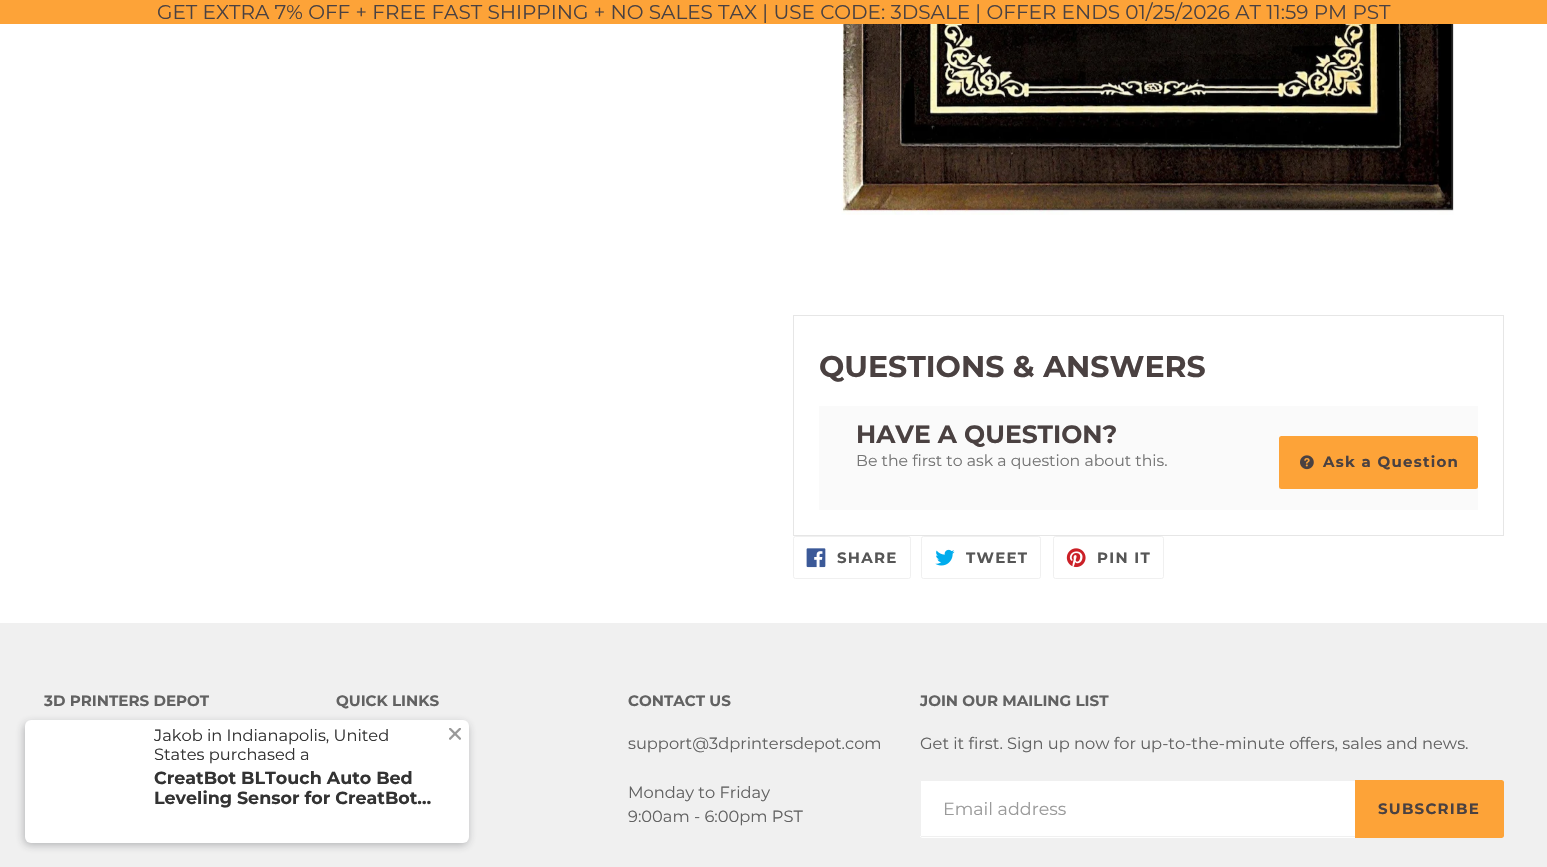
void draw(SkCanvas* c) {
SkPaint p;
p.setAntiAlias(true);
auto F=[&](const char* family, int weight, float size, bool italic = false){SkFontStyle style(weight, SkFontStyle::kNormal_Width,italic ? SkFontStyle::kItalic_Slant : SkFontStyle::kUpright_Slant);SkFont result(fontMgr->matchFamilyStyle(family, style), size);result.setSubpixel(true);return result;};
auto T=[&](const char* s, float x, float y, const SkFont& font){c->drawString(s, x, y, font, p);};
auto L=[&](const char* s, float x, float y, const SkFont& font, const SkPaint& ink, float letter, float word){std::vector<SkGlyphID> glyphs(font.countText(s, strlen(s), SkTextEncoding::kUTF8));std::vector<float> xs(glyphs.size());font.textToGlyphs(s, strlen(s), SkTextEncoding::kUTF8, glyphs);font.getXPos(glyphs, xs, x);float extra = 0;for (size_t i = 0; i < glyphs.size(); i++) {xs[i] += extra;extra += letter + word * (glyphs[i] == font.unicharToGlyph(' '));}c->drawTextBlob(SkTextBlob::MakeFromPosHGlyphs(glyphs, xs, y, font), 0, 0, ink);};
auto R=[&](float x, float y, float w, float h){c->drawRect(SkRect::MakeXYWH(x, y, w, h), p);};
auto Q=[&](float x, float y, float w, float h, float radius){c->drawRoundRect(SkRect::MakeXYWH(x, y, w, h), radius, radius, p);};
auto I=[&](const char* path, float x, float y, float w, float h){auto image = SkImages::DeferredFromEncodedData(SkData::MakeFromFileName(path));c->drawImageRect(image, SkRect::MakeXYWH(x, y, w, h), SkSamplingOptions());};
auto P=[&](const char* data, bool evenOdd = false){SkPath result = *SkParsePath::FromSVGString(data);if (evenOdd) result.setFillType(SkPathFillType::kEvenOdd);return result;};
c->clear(0xffffffff);
p.setColor(0xfffda338);
R(0,0,1547,24);
auto f1 = F("Montserrat",400,20);
p.setColor(0xff4a4141);
T("GET EXTRA 7% OFF + FREE FAST SHIPPING + NO SALES TAX | USE CODE: 3DSALE | OFFER ENDS 01/25/2026 AT 11:59 PM PST",157,19,f1);
I("1.png",841,24,613,191);
p.setStroke(true);
p.setStrokeWidth(1);
p.setColor(0xffe6e6e6);
c->drawRect(SkRect::MakeXYWH(793.5,315.5,710,220),p);
auto f2 = F("Montserrat",700,30);
p.setStroke(false);
p.setColor(0xff4a4141);
T("QUESTIONS & ANSWERS",819,377,f2);
p.setColor(0xfffafafa);
R(819,406,659,104);
auto f3 = F("Montserrat",700,25);
p.setColor(0xff4a4141);
T("HAVE A QUESTION?",856,443,f3);
auto f4 = F("Montserrat",400,15.75);
p.setColor(0xff757575);
T("Be the first to ask a question about this.",856,466,f4);
p.setColor(0xfffda338);
Q(1279,436,199,53,2.5);
I("2.png",1300,455,14,15);
auto f5 = F("Montserrat",700,15);
p.setColor(0xff4a4141);
L("Ask a Question",1323,467,f5,p,1.25,0);
p.setStroke(true);
p.setColor(0xfff0f0f0);
c->drawRoundRect(SkRect::MakeXYWH(793.5,536.5,117,42),2,2,p);
I("3.png",806,548,20,20);
p.setStroke(false);
p.setColor(0xff565656);
L("SHARE",837,563,f5,p,1.25,0);
p.setStroke(true);
p.setColor(0xfff0f0f0);
c->drawRoundRect(SkRect::MakeXYWH(921.5,536.5,119,42),2,2,p);
I("4.png",935,549,20,17);
p.setStroke(false);
p.setColor(0xff565656);
L("TWEET",966,563,f5,p,1.25,0);
p.setStroke(true);
p.setColor(0xfff0f0f0);
c->drawRoundRect(SkRect::MakeXYWH(1053.5,536.5,110,42),2,2,p);
I("5.png",1066,548,20,20);
p.setStroke(false);
p.setColor(0xff565656);
L("PIN IT",1097,563,f5,p,1.25,0);
p.setColor(0xfff0f0f0);
R(0,623,1547,244);
auto f6 = F("Montserrat",700,15.1);
p.setColor(0xff626262);
T("3D PRINTERS DEPOT",44,706,f6);
T("QUICK LINKS",336,706,f6);
T("CONTACT US",628,706,f6);
auto f7 = F("Montserrat",400,16.25);
T("support@3dprintersdepot.com",628,749,f7);
T("Monday to Friday",628,798,f7);
T("9:00am - 6:00pm PST",628,822,f7);
T("JOIN OUR MAILING LIST",920,706,f6);
T("Get it first. Sign up now for up-to-the-minute offers, sales and news.",920,749,f7);
p.setColor(0xffffffff);
c->drawPath(P("M922.5 780h432.5v58h-432.5c-1.5 0-2.5-1-2.5-2.5v-53c0-1.5 1-2.5 2.5-2.5z"),p);
p.setColor(0xfff0f0f0);
R(921,780,434,1);
R(921,836,434,1);
R(920,781,1,55);
auto f8 = F("Montserrat",400,17.5);
p.setColor(0xff9a9a9a);
T("Email address",943,815,f8);
p.setColor(0xfffda338);
c->drawPath(P("M1355 780h146.5c1.5 0 2.5 1 2.5 2.5v53c0 1.5-1 2.5-2.5 2.5h-146.5z"),p);
p.setColor(0xff4a4141);
L("SUBSCRIBE",1378,814,f5,p,1.25,0);
p.setColor(0x4d1e2028);
p.setMaskFilter(SkMaskFilter::MakeBlur(kNormal_SkBlurStyle, 4));
c->drawRoundRect(SkRect::MakeXYWH(24,723,444,122),6,6,p);
p.setMaskFilter(nullptr);
p.setColor(0xffffffff);
Q(25,720,444,123,6);
p.setColor(0xff333333);
T("Jakob in Indianapolis, United",154,741,f7);
T("States purchased a",154,760,f7);
auto f9 = F("Montserrat",700,17.5);
T("CreatBot BLTouch Auto Bed",154,784,f9);
T("Leveling Sensor for CreatBot…",154,804,f9);
I("6.png",449,728,12,12);
}
